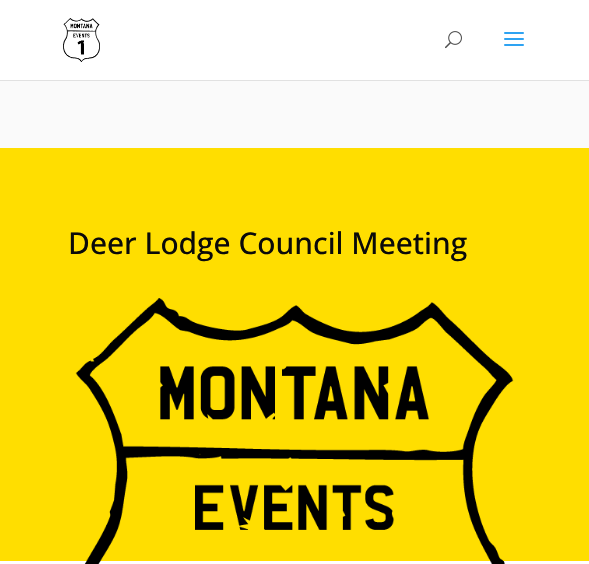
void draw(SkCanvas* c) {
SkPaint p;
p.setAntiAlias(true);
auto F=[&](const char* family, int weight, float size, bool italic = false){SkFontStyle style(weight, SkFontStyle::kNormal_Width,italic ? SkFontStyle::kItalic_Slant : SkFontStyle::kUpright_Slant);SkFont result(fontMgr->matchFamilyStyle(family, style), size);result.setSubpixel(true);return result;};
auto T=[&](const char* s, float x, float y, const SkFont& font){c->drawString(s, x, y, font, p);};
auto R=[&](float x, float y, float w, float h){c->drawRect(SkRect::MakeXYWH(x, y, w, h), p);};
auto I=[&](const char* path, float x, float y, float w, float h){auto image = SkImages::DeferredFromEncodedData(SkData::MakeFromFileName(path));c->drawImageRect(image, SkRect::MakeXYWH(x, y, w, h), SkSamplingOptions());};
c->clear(0xfffafafa);
p.setColor(0xffe1e1e1);
R(0,80,589,1);
p.setColor(0xffffffff);
R(0,0,589,80);
I("1.png",63,18,37,44);
I("2.png",445,31,17,18);
I("3.png",504,32,20,14);
R(0,561,589,3);
p.setColor(0xffffde00);
R(0,148,589,413);
auto f1 = F("Open Sans",500,30);
p.setColor(0xff0a0a0a);
T("Deer Lodge Council Meeting",68,254,f1);
I("4.png",75,298,439,266);
}
